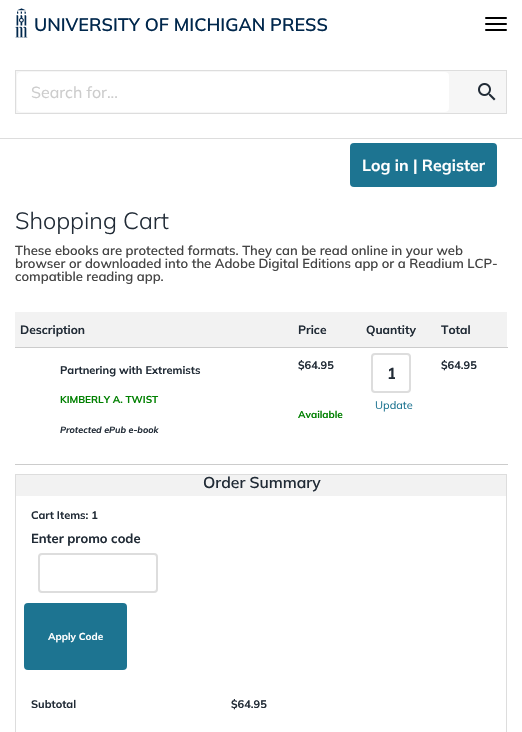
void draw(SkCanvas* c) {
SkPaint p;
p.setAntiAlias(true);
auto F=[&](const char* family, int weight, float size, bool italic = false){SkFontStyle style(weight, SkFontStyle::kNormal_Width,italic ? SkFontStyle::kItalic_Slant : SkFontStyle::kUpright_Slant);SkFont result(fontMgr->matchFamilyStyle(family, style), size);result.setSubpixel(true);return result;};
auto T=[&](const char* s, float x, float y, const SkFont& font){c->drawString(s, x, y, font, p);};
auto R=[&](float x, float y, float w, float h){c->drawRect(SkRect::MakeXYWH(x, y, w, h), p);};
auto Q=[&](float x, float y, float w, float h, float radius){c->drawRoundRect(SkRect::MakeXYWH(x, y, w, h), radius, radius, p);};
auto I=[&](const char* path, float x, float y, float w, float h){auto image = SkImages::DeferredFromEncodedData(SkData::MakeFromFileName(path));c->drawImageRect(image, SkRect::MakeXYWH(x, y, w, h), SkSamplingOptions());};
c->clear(0xffffffff);
p.setColor(0xffdddddd);
R(0,138,522,1);
I("1.png",15,8,13,30);
auto f1 = F("Mulish",600,18);
p.setColor(0xff00274c);
T("UNIVERSITY OF MICHIGAN PRESS",34,31,f1);
p.setColor(0xff000000);
Q(485,17,22,2,1);
Q(485,23,22,2,1);
Q(485,29,22,2,1);
p.setColor(0xfff6f6f6);
c->drawRect(SkRect::MakeXYWH(15.5,70.5,491,43),p);
p.setStroke(true);
p.setStrokeWidth(1);
p.setColor(0xffdddddd);
c->drawRect(SkRect::MakeXYWH(15.5,70.5,491,43),p);
p.setStroke(false);
p.setColor(0xffffffff);
Q(17,72,432,40,4);
auto f2 = F("Mulish",400,16);
p.setColor(0xffcccccc);
T("Search for...",31,98,f2);
I("2.png",478,83,18,18);
p.setColor(0xff1d7491);
Q(350,143,147,44,4);
auto f3 = F("Mulish",700,16);
p.setColor(0xffffffff);
T("Log in | Register",362,171,f3);
auto f4 = F("Mulish",300,23.5);
p.setColor(0xff212b36);
T("Shopping Cart",15,229,f4);
auto f5 = F("Mulish",600,13.05);
p.setColor(0xff454545);
T("These ebooks are protected formats. They can be read online in your web",15,255,f5);
T("browser or downloaded into the Adobe Digital Editions app or a Readium LCP-",15,268,f5);
T("compatible reading app.",15,281,f5);
p.setColor(0xffcccccc);
R(15,347,493,1);
p.setColor(0xfff2f2f2);
R(15,312,492,35);
auto f6 = F("Mulish",700,12);
p.setColor(0xff212b36);
T("Description",20,334,f6);
T("Price",298,334,f6);
T("Quantity",366,334,f6);
T("Total",441,334,f6);
p.setColor(0xffcccccc);
R(15,464,493,1);
auto f7 = F("Mulish",700,11);
p.setColor(0xff212b36);
T("Partnering with Extremists",60,374,f7);
auto f8 = F("Mulish",700,10);
p.setColor(0xff008000);
T("KIMBERLY A. TWIST",60,403,f8);
auto f9 = F("Mulish",700,9,true);
p.setColor(0xff212b36);
T("Protected ePub e-book",60,433,f9);
T("$64.95",298,369,f7);
p.setColor(0xff008000);
T("Available",298,418,f8);
p.setStroke(true);
p.setStrokeWidth(2);
p.setColor(0xffdddddd);
c->drawRoundRect(SkRect::MakeXYWH(372,354,38,38),3,3,p);
c->save();
c->clipRect(SkRect::MakeXYWH(387,363,8,20));
p.setStroke(false);
p.setColor(0xff212b36);
T("1",387,379,f3);
c->restore();
auto f10 = F("Mulish",400,11);
p.setColor(0xff1d7491);
T("Update",375,409,f10);
p.setColor(0xff212b36);
T("$64.95",441,369,f7);
p.setStroke(true);
p.setStrokeWidth(1);
p.setColor(0xffdddddd);
c->drawRect(SkRect::MakeXYWH(15.5,474.5,491,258),p);
p.setStroke(false);
p.setColor(0xfff2f2f2);
R(16,475,490,21);
auto f11 = F("Mulish",600,15.75);
p.setColor(0xff212b36);
T("Order Summary",203,488,f11);
T("Cart Items: 1",31,519,f7);
auto f12 = F("Mulish",700,13);
T("Enter promo code",31,543,f12);
p.setStroke(true);
p.setStrokeWidth(2);
p.setColor(0xffdddddd);
c->drawRoundRect(SkRect::MakeXYWH(39,554,118,38),3,3,p);
p.setStroke(false);
p.setColor(0xff1d7491);
Q(24,603,103,67,4);
p.setColor(0xffffffff);
T("Apply Code",48,640,f8);
p.setColor(0xff212b36);
T("Subtotal",31,708,f7);
T("$64.95",231,708,f7);
}
